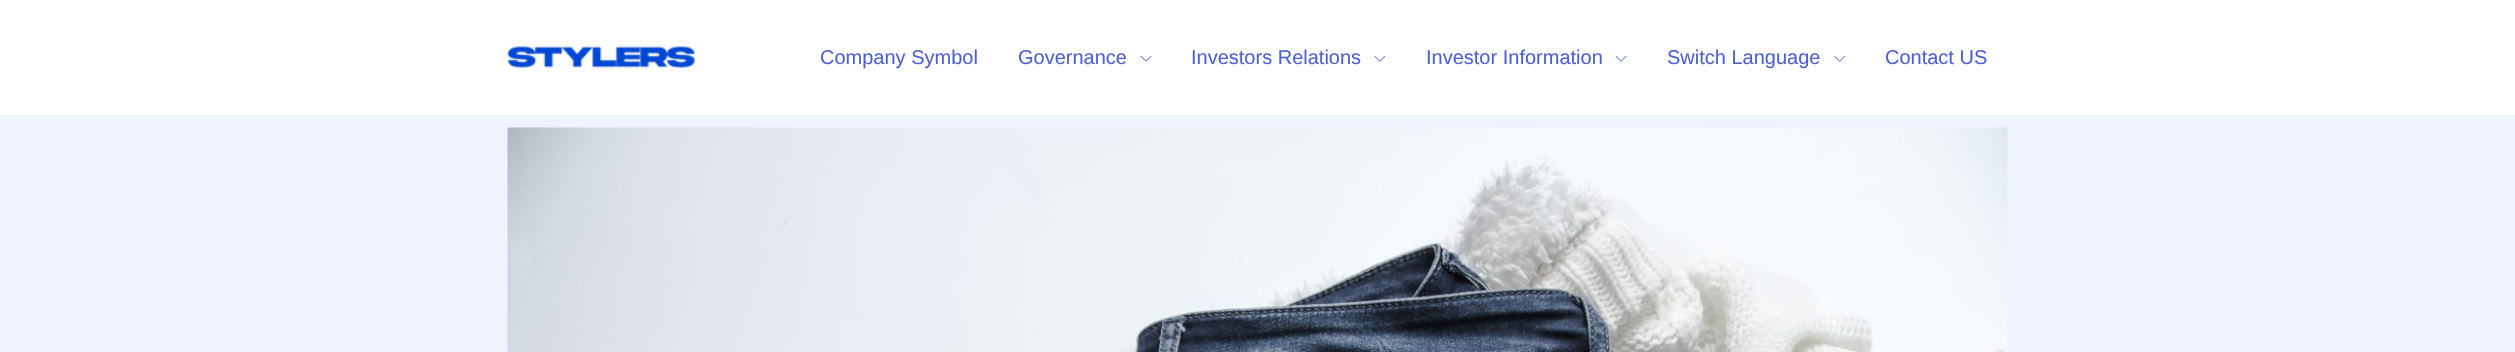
void draw(SkCanvas* c) {
SkPaint p;
p.setAntiAlias(true);
auto F=[&](const char* family, int weight, float size, bool italic = false){SkFontStyle style(weight, SkFontStyle::kNormal_Width,italic ? SkFontStyle::kItalic_Slant : SkFontStyle::kUpright_Slant);SkFont result(fontMgr->matchFamilyStyle(family, style), size);result.setSubpixel(true);return result;};
auto T=[&](const char* s, float x, float y, const SkFont& font){c->drawString(s, x, y, font, p);};
auto R=[&](float x, float y, float w, float h){c->drawRect(SkRect::MakeXYWH(x, y, w, h), p);};
auto I=[&](const char* path, float x, float y, float w, float h){auto image = SkImages::DeferredFromEncodedData(SkData::MakeFromFileName(path));c->drawImageRect(image, SkRect::MakeXYWH(x, y, w, h), SkSamplingOptions());};
c->clear(0xffeff2ff);
p.setColor(0xffffffff);
R(0,0,2515,115);
I("1.png",507,46,188,23);
auto f1 = F("Liberation Sans",400,20);
p.setColor(0xff4d61d6);
T("Company Symbol",820,64,f1);
T("Governance",1018,64,f1);
I("2.png",1140,55,12,7);
T("Investors Relations",1191,64,f1);
I("3.png",1374,55,12,7);
T("Investor Information",1426,64,f1);
I("2.png",1615,55,12,7);
T("Switch Language",1667,64,f1);
I("3.png",1834,55,12,7);
T("Contact US",1885,64,f1);
I("4.png",507,127,1501,225);
}
